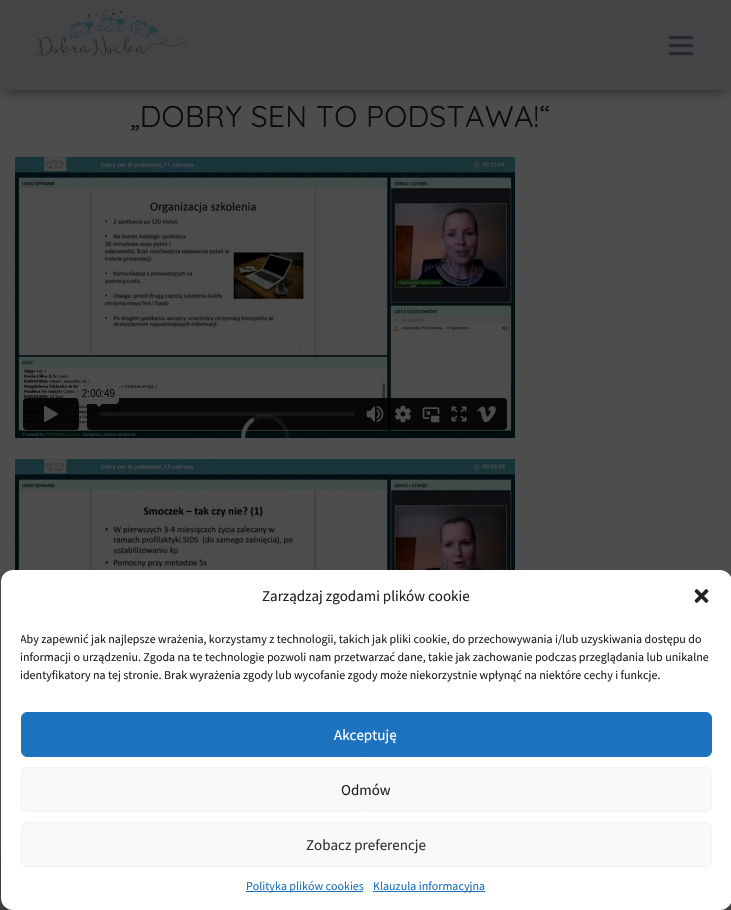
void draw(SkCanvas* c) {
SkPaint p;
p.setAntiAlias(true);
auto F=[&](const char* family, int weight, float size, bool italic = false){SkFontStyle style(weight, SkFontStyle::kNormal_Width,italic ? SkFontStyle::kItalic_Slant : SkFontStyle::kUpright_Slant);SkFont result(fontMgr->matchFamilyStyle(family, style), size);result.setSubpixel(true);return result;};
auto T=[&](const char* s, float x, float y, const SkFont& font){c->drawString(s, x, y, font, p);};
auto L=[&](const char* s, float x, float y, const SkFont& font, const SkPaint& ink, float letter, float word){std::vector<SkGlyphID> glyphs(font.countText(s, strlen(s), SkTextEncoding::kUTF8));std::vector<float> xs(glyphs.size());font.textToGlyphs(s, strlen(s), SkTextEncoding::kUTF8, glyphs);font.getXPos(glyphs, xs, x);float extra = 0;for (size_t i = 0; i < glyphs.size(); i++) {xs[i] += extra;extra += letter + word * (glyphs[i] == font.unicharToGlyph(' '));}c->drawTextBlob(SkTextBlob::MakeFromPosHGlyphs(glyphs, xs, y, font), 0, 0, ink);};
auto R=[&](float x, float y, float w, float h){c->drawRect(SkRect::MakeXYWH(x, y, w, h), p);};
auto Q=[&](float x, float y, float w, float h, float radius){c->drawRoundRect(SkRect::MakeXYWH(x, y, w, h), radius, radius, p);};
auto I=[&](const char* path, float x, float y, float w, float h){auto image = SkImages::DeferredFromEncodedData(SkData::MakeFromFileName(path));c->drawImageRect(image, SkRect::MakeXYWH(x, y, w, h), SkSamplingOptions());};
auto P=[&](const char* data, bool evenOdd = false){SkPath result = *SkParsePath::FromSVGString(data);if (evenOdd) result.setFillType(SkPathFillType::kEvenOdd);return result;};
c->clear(0xff4d4d4d);
p.setColor(0xff1a1a1a);
p.setMaskFilter(SkMaskFilter::MakeBlur(kNormal_SkBlurStyle, 7.5));
c->drawRect(SkRect::MakeXYWH(5,9,721,80),p);
p.setMaskFilter(nullptr);
p.setColor(0xff444446);
R(0,0,731,90);
I("1.png",35,9,150,47);
p.setColor(0xff272730);
R(669,44,24,3);
R(669,36,24,3);
R(669,52,24,3);
auto f1 = F("Quicksand",400,30);
p.setColor(0xff0b0b0b);
L("„DOBRY SEN TO PODSTAWA!“",130,127,f1,p,.3,0);
I("2.png",15,157,500,281);
I("3.png",15,459,500,111);
p.setColor(0xff1a1a1a);
p.setMaskFilter(SkMaskFilter::MakeBlur(kNormal_SkBlurStyle, 7.5));
c->drawRect(SkRect::MakeXYWH(5,866,721,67),p);
p.setMaskFilter(nullptr);
p.setColor(0xff444446);
R(0,857,13,53);
R(720,902,11,8);
c->save();
c->clipPath(P("M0 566h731v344h-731zm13 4h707c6.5 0 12 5.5 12 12v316c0 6.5-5.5 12-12 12h-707c-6.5 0-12-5.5-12-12v-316c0-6.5 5.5-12 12-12z",true),true);
p.setColor(0x3b000000);
p.setMaskFilter(SkMaskFilter::MakeBlur(kNormal_SkBlurStyle, 3));
c->drawRoundRect(SkRect::MakeXYWH(1,576,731,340),12,12,p);
p.setMaskFilter(nullptr);
c->restore();
p.setColor(0xffffffff);
Q(1,570,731,340,12);
auto f2 = F("Source Sans Pro",400,15);
p.setColor(0xff222222);
T("Zarządzaj zgodami plików cookie",262,601,f2);
I("4.png",694,589,15,14);
c->save();
c->clipRect(SkRect::MakeXYWH(21,630,691,59));
auto f3 = F("Source Sans Pro",400,12);
T("Aby zapewnić jak najlepsze wrażenia, korzystamy z technologii, takich jak pliki cookie, do przechowywania i/lub uzyskiwania dostępu do",20,643,f3);
c->restore();
T("informacji o urządzeniu. Zgoda na te technologie pozwoli nam przetwarzać dane, takie jak zachowanie podczas przeglądania lub unikalne",20,661,f3);
T("identyfikatory na tej stronie. Brak wyrażenia zgody lub wycofanie zgody może niekorzystnie wpłynąć na niektóre cechy i funkcje.",20,679,f3);
p.setColor(0xff1e73be);
c->drawRoundRect(SkRect::MakeXYWH(21.5,712.5,690,44),5.5,5.5,p);
p.setStroke(true);
p.setStrokeWidth(1);
c->drawRoundRect(SkRect::MakeXYWH(21.5,712.5,690,44),5.5,5.5,p);
p.setStroke(false);
p.setColor(0xffffffff);
T("Akceptuję",334,740,f2);
p.setColor(0xfff9f9f9);
c->drawRoundRect(SkRect::MakeXYWH(21.5,767.5,690,44),5.5,5.5,p);
p.setStroke(true);
p.setColor(0xfff2f2f2);
c->drawRoundRect(SkRect::MakeXYWH(21.5,767.5,690,44),5.5,5.5,p);
p.setStroke(false);
p.setColor(0xff222222);
T("Odmów",341,795,f2);
p.setColor(0xfff9f9f9);
c->drawRoundRect(SkRect::MakeXYWH(21.5,822.5,690,44),5.5,5.5,p);
p.setStroke(true);
p.setColor(0xfff2f2f2);
c->drawRoundRect(SkRect::MakeXYWH(21.5,822.5,690,44),5.5,5.5,p);
p.setStroke(false);
p.setColor(0xff333333);
T("Zobacz preferencje",306,850,f2);
p.setColor(0xff1e73be);
R(246,891,117,1);
T("Polityka plików cookies",246,890,f3);
R(373,891,112,1);
T("Klauzula informacyjna",373,890,f3);
}
